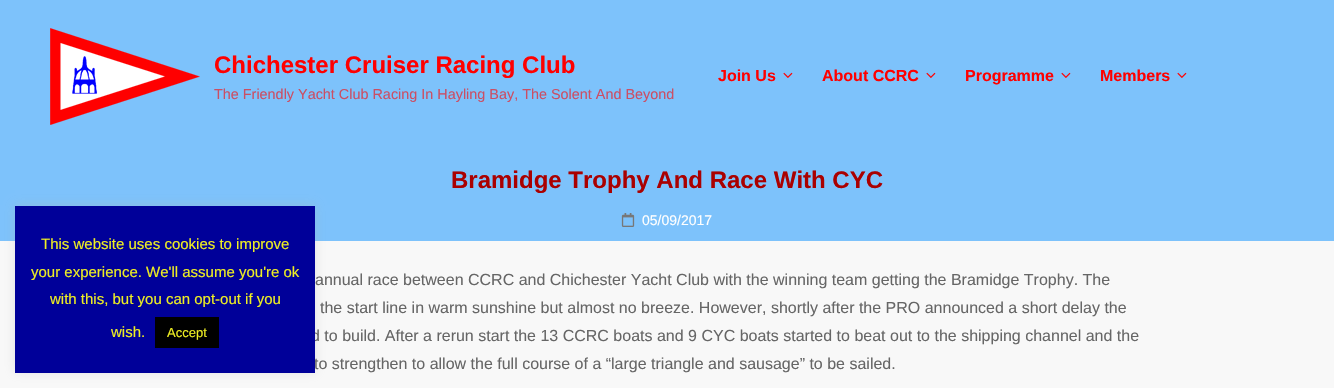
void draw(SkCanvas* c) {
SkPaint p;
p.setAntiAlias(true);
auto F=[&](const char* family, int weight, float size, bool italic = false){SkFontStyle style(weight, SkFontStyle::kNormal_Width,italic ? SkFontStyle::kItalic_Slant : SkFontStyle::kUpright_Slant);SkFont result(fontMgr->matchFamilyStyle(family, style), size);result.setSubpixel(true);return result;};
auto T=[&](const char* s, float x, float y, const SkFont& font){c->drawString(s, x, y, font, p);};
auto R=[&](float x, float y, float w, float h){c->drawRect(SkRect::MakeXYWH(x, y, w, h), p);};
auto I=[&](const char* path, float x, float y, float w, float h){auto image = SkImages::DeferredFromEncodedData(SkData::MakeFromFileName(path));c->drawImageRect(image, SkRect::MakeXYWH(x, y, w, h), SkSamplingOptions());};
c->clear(0xfff8f8f8);
p.setColor(0xff7dc2fb);
R(0,0,1334,241);
p.setColor(0x4dacabab);
p.setMaskFilter(SkMaskFilter::MakeBlur(kNormal_SkBlurStyle, 5));
c->drawRect(SkRect::MakeXYWH(15,205,300,167),p);
p.setMaskFilter(nullptr);
auto f1 = F("Liberation Sans",400,16);
p.setColor(0xff666666);
T("d to build. After a rerun start the 13 CCRC boats and 9 CYC boats started to beat out to the shipping channel and the",311,341,f1);
T("to strengthen to allow the full course of a “large triangle and sausage” to be sailed.",314,369,f1);
p.setColor(0xff000099);
R(15,206,300,167);
auto f2 = F("Liberation Sans",400,15);
p.setColor(0xffeeee22);
T("This website uses cookies to improve",41,249,f2);
T("your experience. We'll assume you're ok",31,277,f2);
T("with this, but you can opt-out if you",50,304,f2);
T("wish.",111,337,f2);
p.setColor(0xff000000);
R(155,317,64,31);
auto f3 = F("Liberation Sans",400,13);
p.setColor(0xffeeee22);
T("Accept",167,337,f3);
I("1.png",50,28,150,97);
auto f4 = F("Liberation Sans",700,24);
p.setColor(0xffff0000);
T("Chichester Cruiser Racing Club",214,73,f4);
auto f5 = F("Liberation Sans",400,14.4);
p.setColor(0xffcb4e64);
T("The Friendly Yacht Club Racing In Hayling Bay, The Solent And Beyond",214,99,f5);
auto f6 = F("Liberation Sans",700,16);
p.setColor(0xffff0000);
T("Join Us",718,81,f6);
I("2.png",783,72,10,6);
T("About CCRC",822,81,f6);
I("2.png",926,72,10,6);
T("Programme",965,81,f6);
I("2.png",1061,72,10,6);
T("Members",1100,81,f6);
I("2.png",1177,72,10,6);
p.setColor(0xffaa0000);
T("Bramidge Trophy And Race With CYC",451,188,f4);
I("3.png",621,213,14,14);
auto f7 = F("Liberation Sans",400,14);
p.setColor(0xffffffff);
T("05/09/2017",642,225,f7);
p.setColor(0xff666666);
T("annual race between CCRC and Chichester Yacht Club with the winning team getting the Bramidge Trophy. The",315,285,f1);
T("the start line in warm sunshine but almost no breeze. However, shortly after the PRO announced a short delay the",320,313,f1);
}
